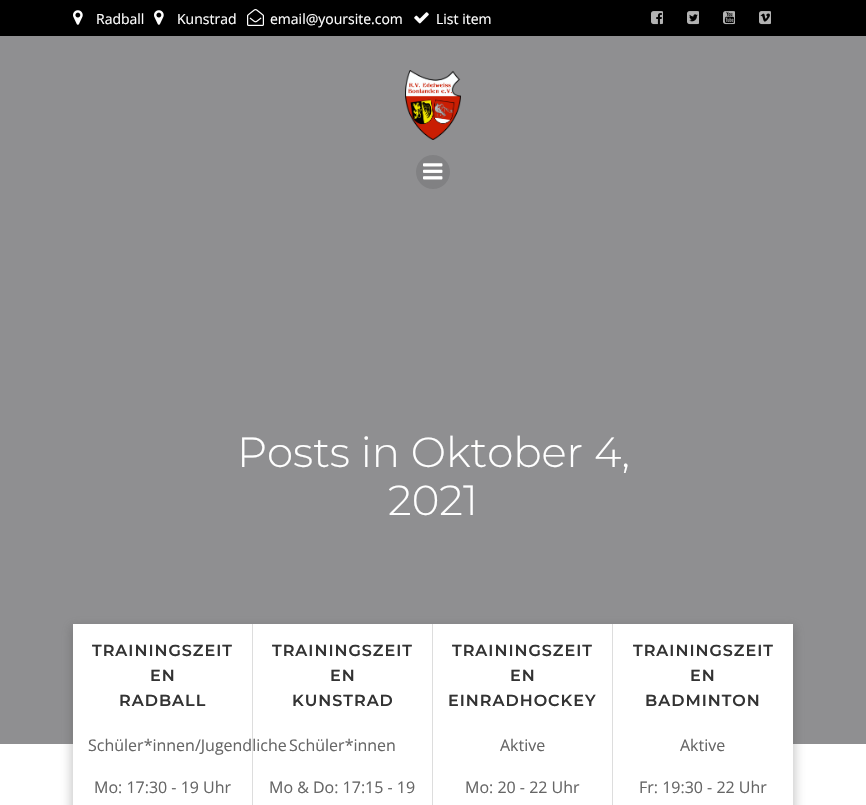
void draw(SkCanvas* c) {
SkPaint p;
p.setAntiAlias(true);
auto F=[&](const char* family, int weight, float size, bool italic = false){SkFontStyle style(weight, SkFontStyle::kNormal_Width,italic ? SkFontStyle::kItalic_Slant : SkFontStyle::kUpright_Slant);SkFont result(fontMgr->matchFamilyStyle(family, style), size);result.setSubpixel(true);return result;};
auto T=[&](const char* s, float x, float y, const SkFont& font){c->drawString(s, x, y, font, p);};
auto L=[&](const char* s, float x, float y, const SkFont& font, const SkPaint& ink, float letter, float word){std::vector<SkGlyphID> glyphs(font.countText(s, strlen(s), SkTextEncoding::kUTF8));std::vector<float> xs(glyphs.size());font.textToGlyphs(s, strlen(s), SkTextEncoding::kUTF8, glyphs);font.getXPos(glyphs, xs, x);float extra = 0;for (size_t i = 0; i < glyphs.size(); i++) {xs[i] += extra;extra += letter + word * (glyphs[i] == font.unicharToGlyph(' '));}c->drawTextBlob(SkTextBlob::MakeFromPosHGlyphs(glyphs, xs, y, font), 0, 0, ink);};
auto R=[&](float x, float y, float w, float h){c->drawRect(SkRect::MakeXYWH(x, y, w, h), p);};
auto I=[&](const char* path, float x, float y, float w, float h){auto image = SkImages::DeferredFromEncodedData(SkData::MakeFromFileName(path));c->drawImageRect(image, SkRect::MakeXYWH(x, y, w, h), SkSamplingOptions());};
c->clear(0xffffffff);
p.setColor(0xff000000);
R(0,0,866,36);
I("1.png",73,10,10,15);
auto f1 = F("Open Sans",400,14);
p.setColor(0xffffffff);
T("Radball",96,24,f1);
I("1.png",154,10,10,15);
T("Kunstrad",177,24,f1);
I("2.png",247,9,17,17);
T("email@yoursite.com",270,24,f1);
I("3.png",414,12,15,12);
T("List item",436,24,f1);
I("4.png",651,11,12,14);
I("5.png",687,11,12,14);
I("6.png",723,11,12,14);
I("7.png",759,11,12,14);
p.setColor(0xff8f8f91);
R(0,36,866,708);
I("8.png",405,70,56,70);
p.setColor(0xff818183);
c->drawCircle(433,172,17,p);
I("9.png",423,163,20,17);
auto f2 = F("Montserrat",300,42);
p.setColor(0xffffffff);
T("Posts in Oktober 4,",237,467,f2);
T("2021",388,515,f2);
p.setColor(0x4d4a4a4a);
p.setMaskFilter(SkMaskFilter::MakeBlur(kNormal_SkBlurStyle, 5));
c->drawRect(SkRect::MakeXYWH(71,626,724,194),p);
p.setMaskFilter(nullptr);
p.setColor(0xffffffff);
R(73,624,720,181);
p.setColor(0xffdddddd);
R(252,624,1,181);
auto f3 = F("Montserrat",600,16);
p.setColor(0xff333333);
L("TRAININGSZEIT",92,656,f3,p,1,0);
L("EN",150,681,f3,p,1,0);
L("RADBALL",119,706,f3,p,1,0);
auto f4 = F("Open Sans",400,16);
p.setColor(0xff666666);
T("Schüler*innen/Jugendliche",88,751,f4);
T("Mo: 17:30 - 19 Uhr",94,793,f4);
p.setColor(0xffdddddd);
R(432,624,1,181);
p.setColor(0xff333333);
L("TRAININGSZEIT",272,656,f3,p,1,0);
L("EN",330,681,f3,p,1,0);
L("KUNSTRAD",292,706,f3,p,1,0);
p.setColor(0xff666666);
T("Schüler*innen",289,751,f4);
T("Mo & Do: 17:15 - 19",269,793,f4);
p.setColor(0xffdddddd);
R(612,624,1,181);
p.setColor(0xff333333);
L("TRAININGSZEIT",452,656,f3,p,1,0);
L("EN",510,681,f3,p,1,0);
L("EINRADHOCKEY",448,706,f3,p,1,0);
p.setColor(0xff666666);
T("Aktive",500,751,f4);
T("Mo: 20 - 22 Uhr",465,793,f4);
p.setColor(0xff333333);
L("TRAININGSZEIT",633,656,f3,p,1,0);
L("EN",690,681,f3,p,1,0);
L("BADMINTON",645,706,f3,p,1,0);
p.setColor(0xff666666);
T("Aktive",680,751,f4);
T("Fr: 19:30 - 22 Uhr",639,793,f4);
}
